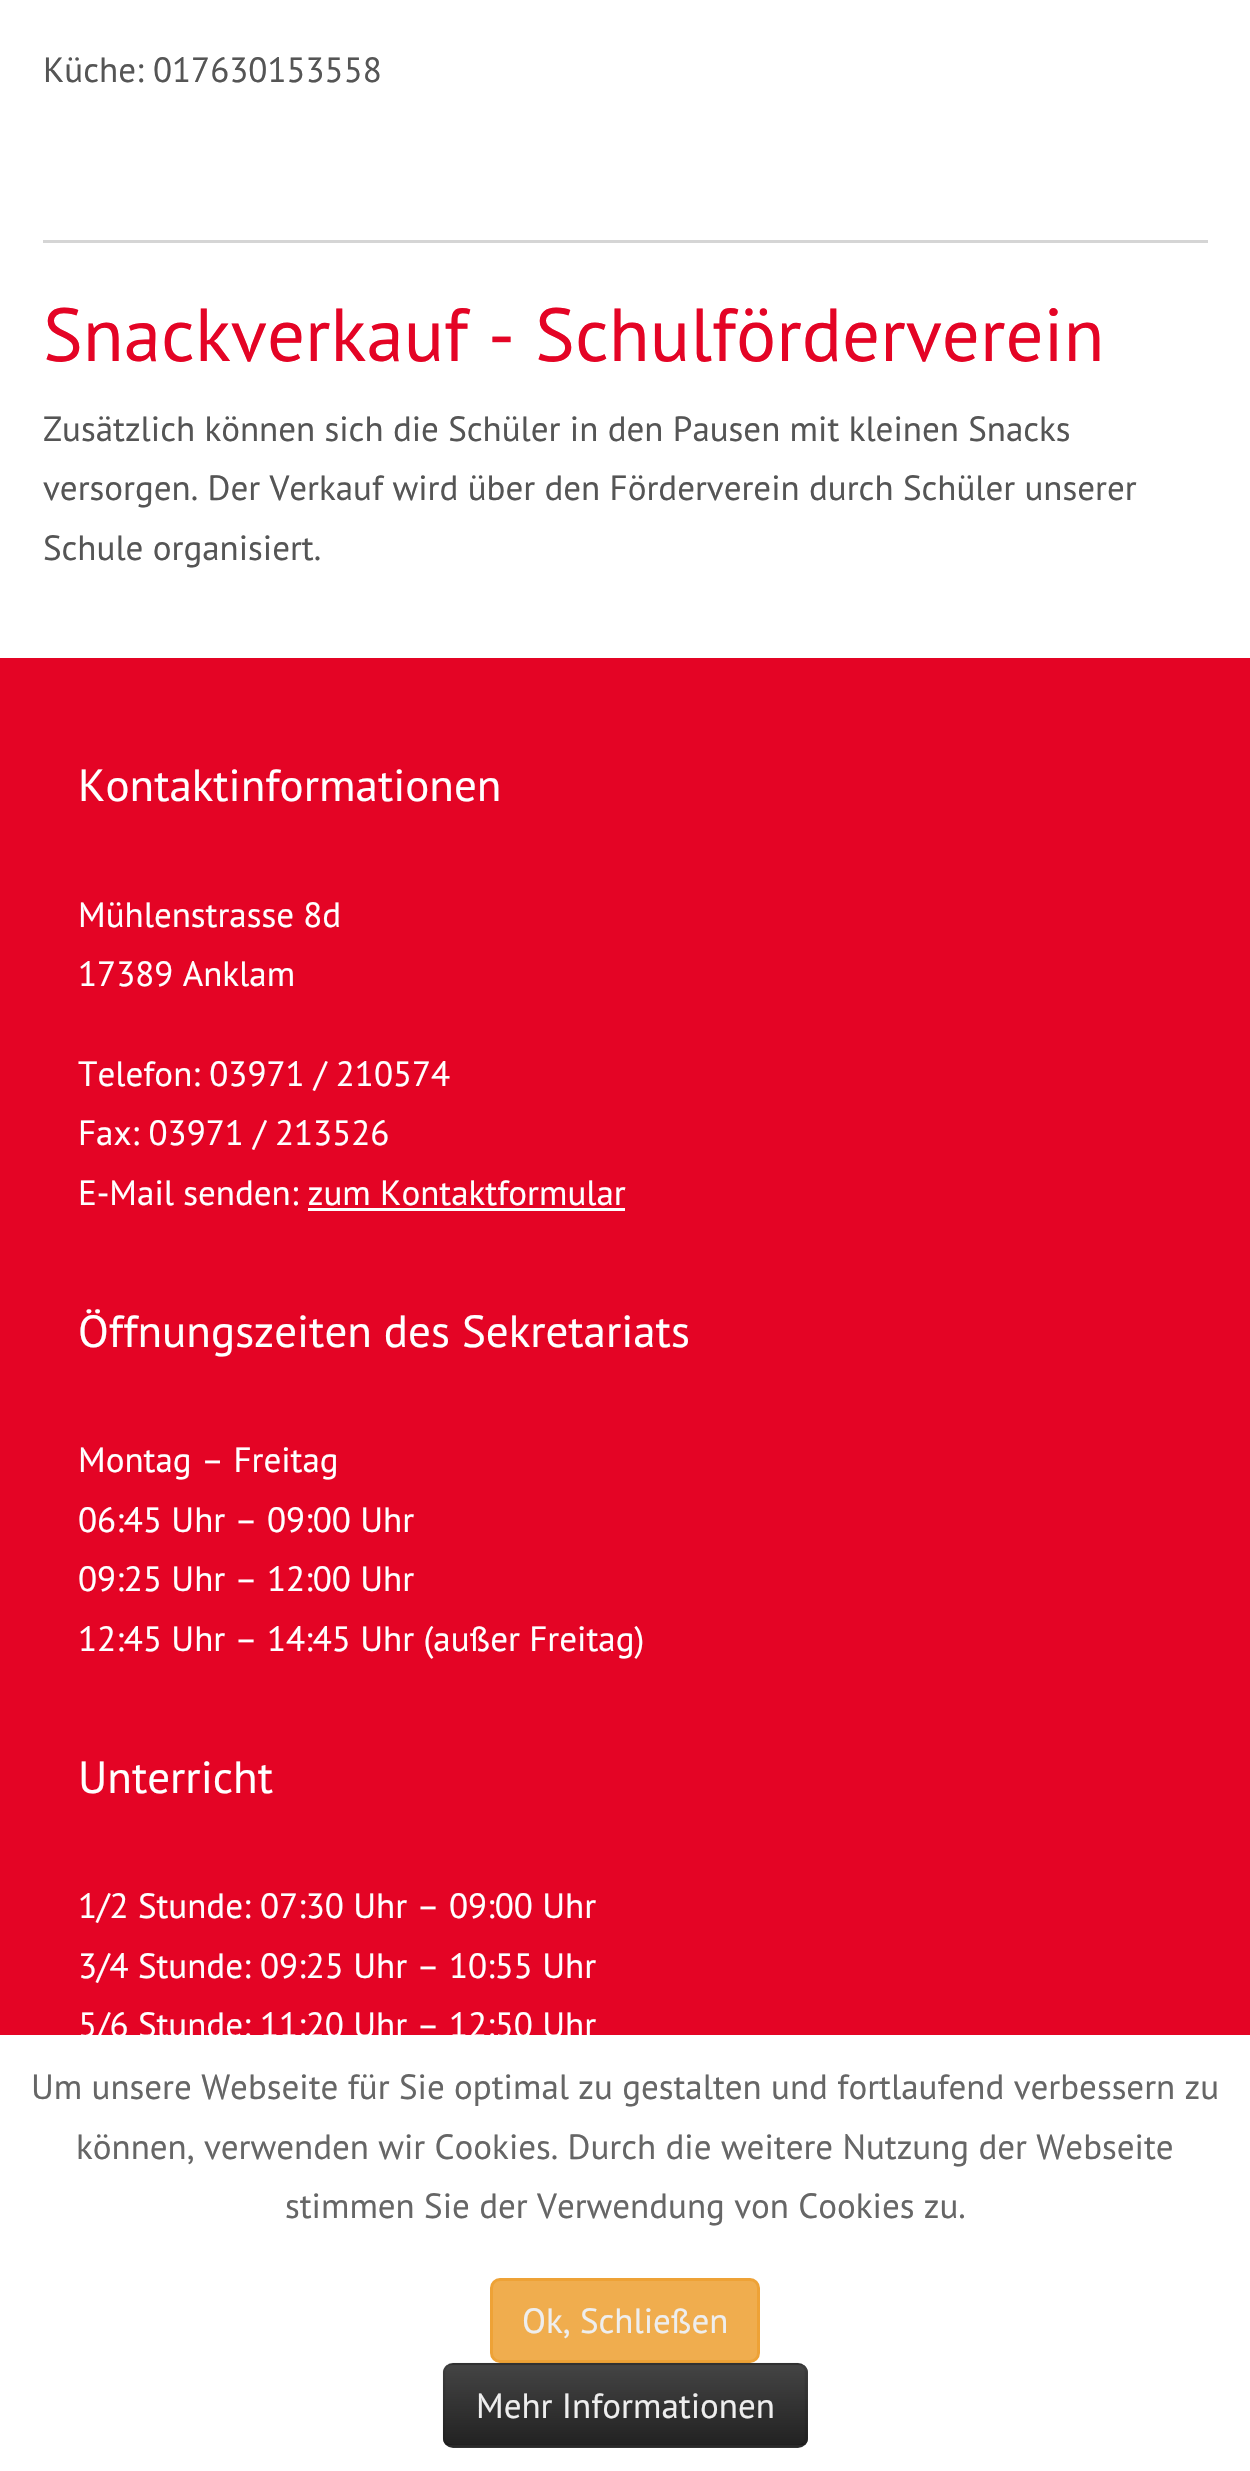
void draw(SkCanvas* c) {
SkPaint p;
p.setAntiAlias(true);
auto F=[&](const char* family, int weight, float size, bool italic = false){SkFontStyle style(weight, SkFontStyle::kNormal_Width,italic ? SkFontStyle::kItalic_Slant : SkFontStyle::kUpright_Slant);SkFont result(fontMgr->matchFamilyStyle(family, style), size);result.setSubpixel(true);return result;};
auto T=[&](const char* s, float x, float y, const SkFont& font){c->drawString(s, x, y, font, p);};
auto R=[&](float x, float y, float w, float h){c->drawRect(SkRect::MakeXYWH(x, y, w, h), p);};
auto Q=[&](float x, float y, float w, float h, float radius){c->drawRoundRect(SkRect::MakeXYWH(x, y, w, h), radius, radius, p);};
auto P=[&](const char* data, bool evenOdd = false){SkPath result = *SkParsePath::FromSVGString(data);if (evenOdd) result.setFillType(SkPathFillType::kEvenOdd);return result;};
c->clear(0xffffffff);
auto f1 = F("PT Sans",400,35);
p.setColor(0xff555555);
T("Küche: 017630153558",43,82,f1);
p.setColor(0xffd5d5d5);
R(43,240,1165,3);
auto f2 = F("PT Sans",400,75);
p.setColor(0xffe40425);
T("Snackverkauf - Schulförderverein",43,361,f2);
p.setColor(0xff555555);
T("Zusätzlich können sich die Schüler in den Pausen mit kleinen Snacks",43,441,f1);
T("versorgen. Der Verkauf wird über den Förderverein durch Schüler unserer",43,500,f1);
T("Schule organisiert.",43,560,f1);
p.setColor(0xffe40425);
R(0,658,1250,1377);
auto f3 = F("PT Sans",400,45);
p.setColor(0xffffffff);
T("Kontaktinformationen",78,801,f3);
T("Mühlenstrasse 8d",78,927,f1);
T("17389 Anklam",78,986,f1);
T("Telefon: 03971 / 210574",78,1086,f1);
T("Fax: 03971 / 213526",78,1145,f1);
T("E-Mail senden: zum Kontaktformular",78,1205,f1);
R(308,1208,317,3);
T("Öffnungszeiten des Sekretariats",78,1347,f3);
T("Montag – Freitag",78,1472,f1);
T("06:45 Uhr – 09:00 Uhr",78,1532,f1);
T("09:25 Uhr – 12:00 Uhr",78,1591,f1);
T("12:45 Uhr – 14:45 Uhr (außer Freitag)",78,1651,f1);
T("Unterricht",78,1793,f3);
T("1/2 Stunde: 07:30 Uhr – 09:00 Uhr",78,1918,f1);
T("3/4 Stunde: 09:25 Uhr – 10:55 Uhr",78,1978,f1);
T("5/6 Stunde: 11:20 Uhr – 12:50 Uhr",78,2037,f1);
p.setColor(0xff666666);
T("Um unsere Webseite für Sie optimal zu gestalten und fortlaufend verbessern zu",31,2099,f1);
T("können, verwenden wir Cookies. Durch die weitere Nutzung der Webseite",76,2159,f1);
T("stimmen Sie der Verwendung von Cookies zu.",285,2218,f1);
p.setColor(0xfff0ad4e);
c->drawRoundRect(SkRect::MakeXYWH(491.5,2279.5,267,82),8.5,8.5,p);
p.setStroke(true);
p.setStrokeWidth(3);
p.setColor(0xffeea236);
c->drawRoundRect(SkRect::MakeXYWH(491.5,2279.5,267,82),8.5,8.5,p);
p.setStroke(false);
p.setColor(0xffeeeeee);
T("Ok, Schließen",522,2333,f1);
p.setColor(0xff363636);
Q(443,2363,365,85,10);
c->save();
c->clipPath(P("M453 2363h345c5.5 0 10 4.5 10 10v65c0 5.5-4.5 10-10 10h-345c-5.5 0-10-4.5-10-10v-65c0-5.5 4.5-10 10-10z"),true);
{
const SkColor colors[] = {0xff444444,0xff222222};
const float stops[] = {0,1};
const SkPoint ends[] = {{625,2365}, {625,2445}};
p.setShader(SkGradientShader::MakeLinear(ends, colors, stops, 2, SkTileMode::kClamp));
p.setAlpha(255);
}
R(443,2365,365,80);
c->restore();
p.setStroke(true);
p.setStrokeWidth(2.5);
p.setShader(nullptr);
p.setColor(0x40000000);
c->drawPath(P("M803.5 2443.5c-1.5 2-3.5 2.5-6 2.5h-345c-2.5 0-4.5-.5-6-2.5"),p);
p.setColor(0x1a000000);
c->drawPath(P("M446.5 2443.5c-2-1.5-2.5-3.5-2.5-6v-65c0-2.5 .5-4.5 2.5-6c1.5-2 3.5-2.5 6-2.5h345c2.5 0 4.5 .5 6 2.5c2 1.5 2.5 3.5 2.5 6v65c0 2.5-.5 4.5-2.5 6"),p);
p.setStroke(false);
p.setColor(0xffeeeeee);
T("Mehr Informationen",476,2418,f1);
}
